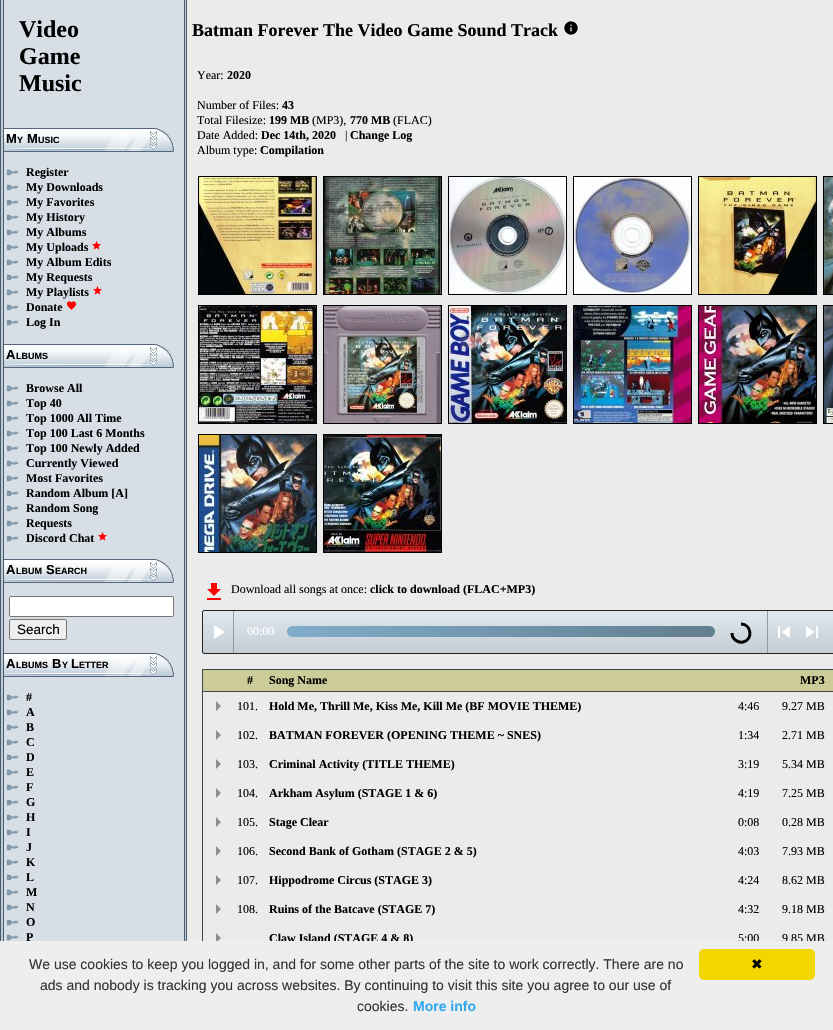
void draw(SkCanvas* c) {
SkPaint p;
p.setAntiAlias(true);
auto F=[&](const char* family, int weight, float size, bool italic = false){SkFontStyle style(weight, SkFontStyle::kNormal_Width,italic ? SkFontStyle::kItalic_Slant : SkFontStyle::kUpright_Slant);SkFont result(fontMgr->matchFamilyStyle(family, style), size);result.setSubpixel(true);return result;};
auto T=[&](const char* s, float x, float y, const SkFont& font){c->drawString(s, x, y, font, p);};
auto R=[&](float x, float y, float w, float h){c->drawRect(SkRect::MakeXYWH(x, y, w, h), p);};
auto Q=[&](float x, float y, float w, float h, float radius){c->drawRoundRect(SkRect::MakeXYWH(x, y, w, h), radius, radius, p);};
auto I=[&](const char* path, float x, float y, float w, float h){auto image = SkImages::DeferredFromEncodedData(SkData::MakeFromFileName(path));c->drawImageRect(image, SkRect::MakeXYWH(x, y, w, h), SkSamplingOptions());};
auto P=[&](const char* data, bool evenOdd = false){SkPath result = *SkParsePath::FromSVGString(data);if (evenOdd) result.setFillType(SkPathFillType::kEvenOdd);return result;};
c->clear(0xffbccbd2);
p.setColor(0xff4b5b6e);
R(0,0,1,941);
p.setColor(0xffd7dee5);
R(4,0,180,941);
p.setColor(0xff4b5b6e);
R(184,0,1,941);
R(3,0,1,941);
auto f1 = F("Liberation Serif",700,24);
p.setColor(0xff000000);
T("Video",19,37,f1);
T("Game",19,64,f1);
T("Music",19,91,f1);
I("1.png",4,128,170,24);
auto f2 = F("Liberation Sans",700,13);
T("M",6,143,f2);
auto f3 = F("Liberation Sans",700,9);
T("Y",17,143,f3);
T("M",27,143,f2);
T("USIC",38,143,f3);
I("2.png",6,169,12,7);
auto f4 = F("Liberation Serif",700,12);
T("Register",26,176,f4);
I("2.png",6,184,12,7);
T("My Downloads",26,191,f4);
I("2.png",6,199,12,7);
T("My Favorites",26,206,f4);
I("2.png",6,214,12,7);
T("My History",26,221,f4);
I("2.png",6,229,12,7);
T("My Albums",26,236,f4);
I("2.png",6,244,12,7);
T("My Uploads",26,251,f4);
I("3.png",92,241,9,9);
I("2.png",6,259,12,7);
T("My Album Edits",26,266,f4);
I("2.png",6,274,12,7);
T("My Requests",26,281,f4);
I("2.png",6,289,12,7);
T("My Playlists",26,296,f4);
I("3.png",93,286,9,9);
I("2.png",6,304,12,7);
T("Donate",26,311,f4);
I("4.png",66,301,11,9);
I("2.png",6,319,12,7);
T("Log In",26,326,f4);
I("1.png",4,344,170,24);
T("A",6,359,f2);
T("LBUMS",16,359,f3);
I("2.png",6,385,12,7);
T("Browse All",26,392,f4);
I("2.png",6,400,12,7);
T("Top 40",26,407,f4);
I("2.png",6,415,12,7);
T("Top 1000 All Time",26,422,f4);
I("2.png",6,430,12,7);
T("Top 100 Last 6 Months",26,437,f4);
I("2.png",6,445,12,7);
T("Top 100 Newly Added",26,452,f4);
I("2.png",6,460,12,7);
T("Currently Viewed",26,467,f4);
I("2.png",6,475,12,7);
T("Most Favorites",26,482,f4);
I("2.png",6,490,12,7);
T("Random Album [A]",26,497,f4);
I("2.png",6,505,12,7);
T("Random Song",26,512,f4);
I("2.png",6,520,12,7);
T("Requests",26,527,f4);
I("2.png",6,535,12,7);
T("Discord Chat",26,542,f4);
I("3.png",98,532,9,9);
I("1.png",4,559,170,24);
T("A",6,574,f2);
T("LBUM",16,574,f3);
T("S",46,574,f2);
T("EARCH",55,574,f3);
p.setColor(0xffffffff);
c->drawRoundRect(SkRect::MakeXYWH(9.5,596.5,164,20),1.5,1.5,p);
p.setStroke(true);
p.setStrokeWidth(1);
p.setColor(0xff767676);
c->drawRoundRect(SkRect::MakeXYWH(9.5,596.5,164,20),1.5,1.5,p);
p.setStroke(false);
p.setColor(0xffefefef);
c->drawRoundRect(SkRect::MakeXYWH(9.5,619.5,57,20),1.5,1.5,p);
p.setStroke(true);
p.setColor(0xff767676);
c->drawRoundRect(SkRect::MakeXYWH(9.5,619.5,57,20),1.5,1.5,p);
auto f5 = F("Liberation Sans",400,13.5);
p.setStroke(false);
p.setColor(0xff000000);
T("Search",17,634,f5);
I("1.png",4,653,170,24);
T("A",6,668,f2);
T("LBUMS",16,668,f3);
T("B",52,668,f2);
T("Y",62,668,f3);
T("L",71,668,f2);
T("ETTER",79,668,f3);
I("2.png",6,694,12,7);
T("#",26,701,f4);
I("2.png",6,709,12,7);
T("A",26,716,f4);
I("2.png",6,724,12,7);
T("B",26,731,f4);
I("2.png",6,739,12,7);
T("C",26,746,f4);
I("2.png",6,754,12,7);
T("D",26,761,f4);
I("2.png",6,769,12,7);
T("E",26,776,f4);
I("2.png",6,784,12,7);
T("F",26,791,f4);
I("2.png",6,799,12,7);
T("G",26,806,f4);
I("2.png",6,814,12,7);
T("H",26,821,f4);
I("2.png",6,829,12,7);
T("I",26,836,f4);
I("2.png",6,844,12,7);
T("J",26,851,f4);
I("2.png",6,859,12,7);
T("K",26,866,f4);
I("2.png",6,874,12,7);
T("L",26,881,f4);
I("2.png",6,889,12,7);
T("M",26,896,f4);
I("2.png",6,904,12,7);
T("N",26,911,f4);
I("2.png",6,919,12,7);
T("O",26,926,f4);
I("2.png",6,934,12,7);
T("P",26,941,f4);
p.setColor(0xffebebeb);
R(187,0,646,941);
p.setColor(0xff4b5b6e);
R(186,0,1,941);
auto f6 = F("Liberation Serif",700,18);
p.setColor(0xff000000);
T("Batman Forever The Video Game Sound Track",192,36,f6);
I("5.png",564,21,14,14);
auto f7 = F("Liberation Serif",400,12);
T("Year:",197,79,f7);
T("2020",227,79,f4);
T("Number of Files:",197,109,f7);
T("43",282,109,f4);
T("Total Filesize:",197,124,f7);
T("199 MB",269,124,f4);
T("(MP3),",312,124,f7);
T("770 MB",350,124,f4);
T("(FLAC)",393,124,f7);
T("Date Added:",197,139,f7);
T("Dec 14th, 2020",261,139,f4);
T("|",345,139,f7);
T("Change Log",350,139,f4);
T("Album type:",197,154,f7);
T("Compilation",260,154,f4);
p.setStroke(true);
c->drawRect(SkRect::MakeXYWH(198.5,176.5,118,118),p);
I("6.png",199,177,117,117);
c->drawRect(SkRect::MakeXYWH(323.5,176.5,118,118),p);
I("7.png",324,177,117,117);
c->drawRect(SkRect::MakeXYWH(448.5,176.5,118,118),p);
I("8.png",449,177,117,117);
c->drawRect(SkRect::MakeXYWH(573.5,176.5,118,118),p);
I("9.png",574,177,117,117);
c->drawRect(SkRect::MakeXYWH(698.5,176.5,118,118),p);
I("10.png",699,177,117,117);
c->drawRect(SkRect::MakeXYWH(823.5,176.5,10,118),p);
I("11.png",824,177,9,117);
c->drawRect(SkRect::MakeXYWH(198.5,305.5,118,118),p);
I("12.png",199,306,117,117);
c->drawRect(SkRect::MakeXYWH(323.5,305.5,118,118),p);
I("13.png",324,306,117,117);
c->drawRect(SkRect::MakeXYWH(448.5,305.5,118,118),p);
I("14.png",449,306,117,117);
c->drawRect(SkRect::MakeXYWH(573.5,305.5,118,118),p);
I("15.png",574,306,117,117);
c->drawRect(SkRect::MakeXYWH(698.5,305.5,118,118),p);
I("16.png",699,306,117,117);
c->drawRect(SkRect::MakeXYWH(823.5,305.5,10,118),p);
I("17.png",824,306,9,117);
c->drawRect(SkRect::MakeXYWH(198.5,434.5,118,118),p);
I("18.png",199,435,117,117);
c->drawRect(SkRect::MakeXYWH(323.5,434.5,118,118),p);
I("19.png",324,435,117,117);
I("20.png",207,583,14,17);
p.setStroke(false);
T("Download all songs at once:",231,593,f7);
T("click to download (FLAC+MP3)",370,593,f4);
{
const SkColor colors[] = {0xffdfe7ef,0xffc4ccd4};
const float stops[] = {0,1};
const SkPoint ends[] = {{575,611}, {575,653}};
p.setShader(SkGradientShader::MakeLinear(ends, colors, stops, 2, SkTileMode::kClamp));
p.setAlpha(255);
}
R(202,611,631,42);
p.setStroke(true);
p.setShader(nullptr);
p.setColor(0xff222222);
c->drawRoundRect(SkRect::MakeXYWH(202.5,610.5,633,43),1.5,1.5,p);
p.setStroke(false);
p.setColor(0xff999999);
R(233,611,1,42);
p.setColor(0xffffffff);
c->drawPath(P("M214 625l11 7l-11 7z"),p);
T("00:00",247,635,f7);
{
const SkColor colors[] = {0xff80adca,0xff637e8f};
const float stops[] = {0,1};
const SkPoint ends[] = {{287,632}, {715,632}};
p.setShader(SkGradientShader::MakeLinear(ends, colors, stops, 2, SkTileMode::kClamp));
p.setAlpha(255);
}
Q(287,626,428,11,5.5);
p.setShader(nullptr);
p.setColor(0xff999999);
R(767,611,1,42);
p.setStroke(true);
p.setStrokeWidth(3);
p.setColor(0xff000000);
c->drawPath(P("M741 624c10.5 0 12.5 15.5 2 18c-2.5 .5-5 0-7-1.5c-2.5-1.5-4-4.5-4-7.5"),p);
I("21.png",778,626,12,12);
I("22.png",806,626,12,12);
p.setStroke(false);
p.setColor(0xffcccc99);
R(828,669,5,22);
p.setColor(0xff444444);
R(202,669,631,1);
R(202,669,1,272);
R(202,691,631,1);
p.setColor(0xffcccc99);
R(203,670,625,21);
p.setColor(0xff000000);
T("#",247,684,f4);
T("Song Name",269,684,f4);
T("MP3",800,684,f4);
p.setColor(0xff8d8d8d);
c->drawPath(P("M216 711v-10l5 5zm0 29v-10l5 5z"),p);
p.setColor(0xff000000);
T("101.",237,710,f7);
T("Hold Me, Thrill Me, Kiss Me, Kill Me (BF MOVIE THEME)",269,710,f4);
T("4:46",738,710,f7);
T("9.27 MB",782,710,f7);
T("102.",237,739,f7);
T("BATMAN FOREVER (OPENING THEME ~ SNES)",269,739,f4);
T("1:34",738,739,f7);
T("2.71 MB",782,739,f7);
p.setColor(0xff8d8d8d);
c->drawPath(P("M216 769v-10l5 5zm0 29v-10l5 5z"),p);
p.setColor(0xff000000);
T("103.",237,768,f7);
T("Criminal Activity (TITLE THEME)",269,768,f4);
T("3:19",738,768,f7);
T("5.34 MB",782,768,f7);
T("104.",237,797,f7);
T("Arkham Asylum (STAGE 1 & 6)",269,797,f4);
T("4:19",738,797,f7);
T("7.25 MB",782,797,f7);
p.setColor(0xff8d8d8d);
c->drawPath(P("M216 827v-10l5 5zm0 29v-10l5 5z"),p);
p.setColor(0xff000000);
T("105.",237,826,f7);
T("Stage Clear",269,826,f4);
T("0:08",738,826,f7);
T("0.28 MB",782,826,f7);
T("106.",237,855,f7);
T("Second Bank of Gotham (STAGE 2 & 5)",269,855,f4);
T("4:03",738,855,f7);
T("7.93 MB",782,855,f7);
p.setColor(0xff8d8d8d);
c->drawPath(P("M216 885v-10l5 5zm0 29v-10l5 5z"),p);
p.setColor(0xff000000);
T("107.",237,884,f7);
T("Hippodrome Circus (STAGE 3)",269,884,f4);
T("4:24",738,884,f7);
T("8.62 MB",782,884,f7);
T("108.",237,913,f7);
T("Ruins of the Batcave (STAGE 7)",269,913,f4);
T("4:32",738,913,f7);
T("9.18 MB",782,913,f7);
p.setColor(0xff8d8d8d);
c->drawPath(P("M216 943v-10l5 5z"),p);
p.setColor(0xff000000);
T("Claw Island (STAGE 4 & 8)",269,942,f4);
T("5:00",738,942,f7);
T("9.85 MB",782,942,f7);
p.setColor(0xffeeeeee);
R(0,941,833,89);
auto f8 = F("Liberation Sans",400,14);
p.setColor(0xff333333);
T("We use cookies to keep you logged in, and for some other parts of the site to work correctly. There are no",29,969,f8);
T("ads and nobody is tracking you across websites. By continuing to visit this site you agree to our use of",40,990,f8);
T("cookies.",357,1011,f8);
auto f9 = F("Liberation Sans",700,14);
p.setColor(0xff31a8f0);
T("More info",413,1011,f9);
p.setColor(0xfff1d600);
Q(699,949,116,31,5);
auto f10 = F("DejaVu Sans",400,14);
p.setColor(0xff000000);
T("✖",751,969,f10);
}
